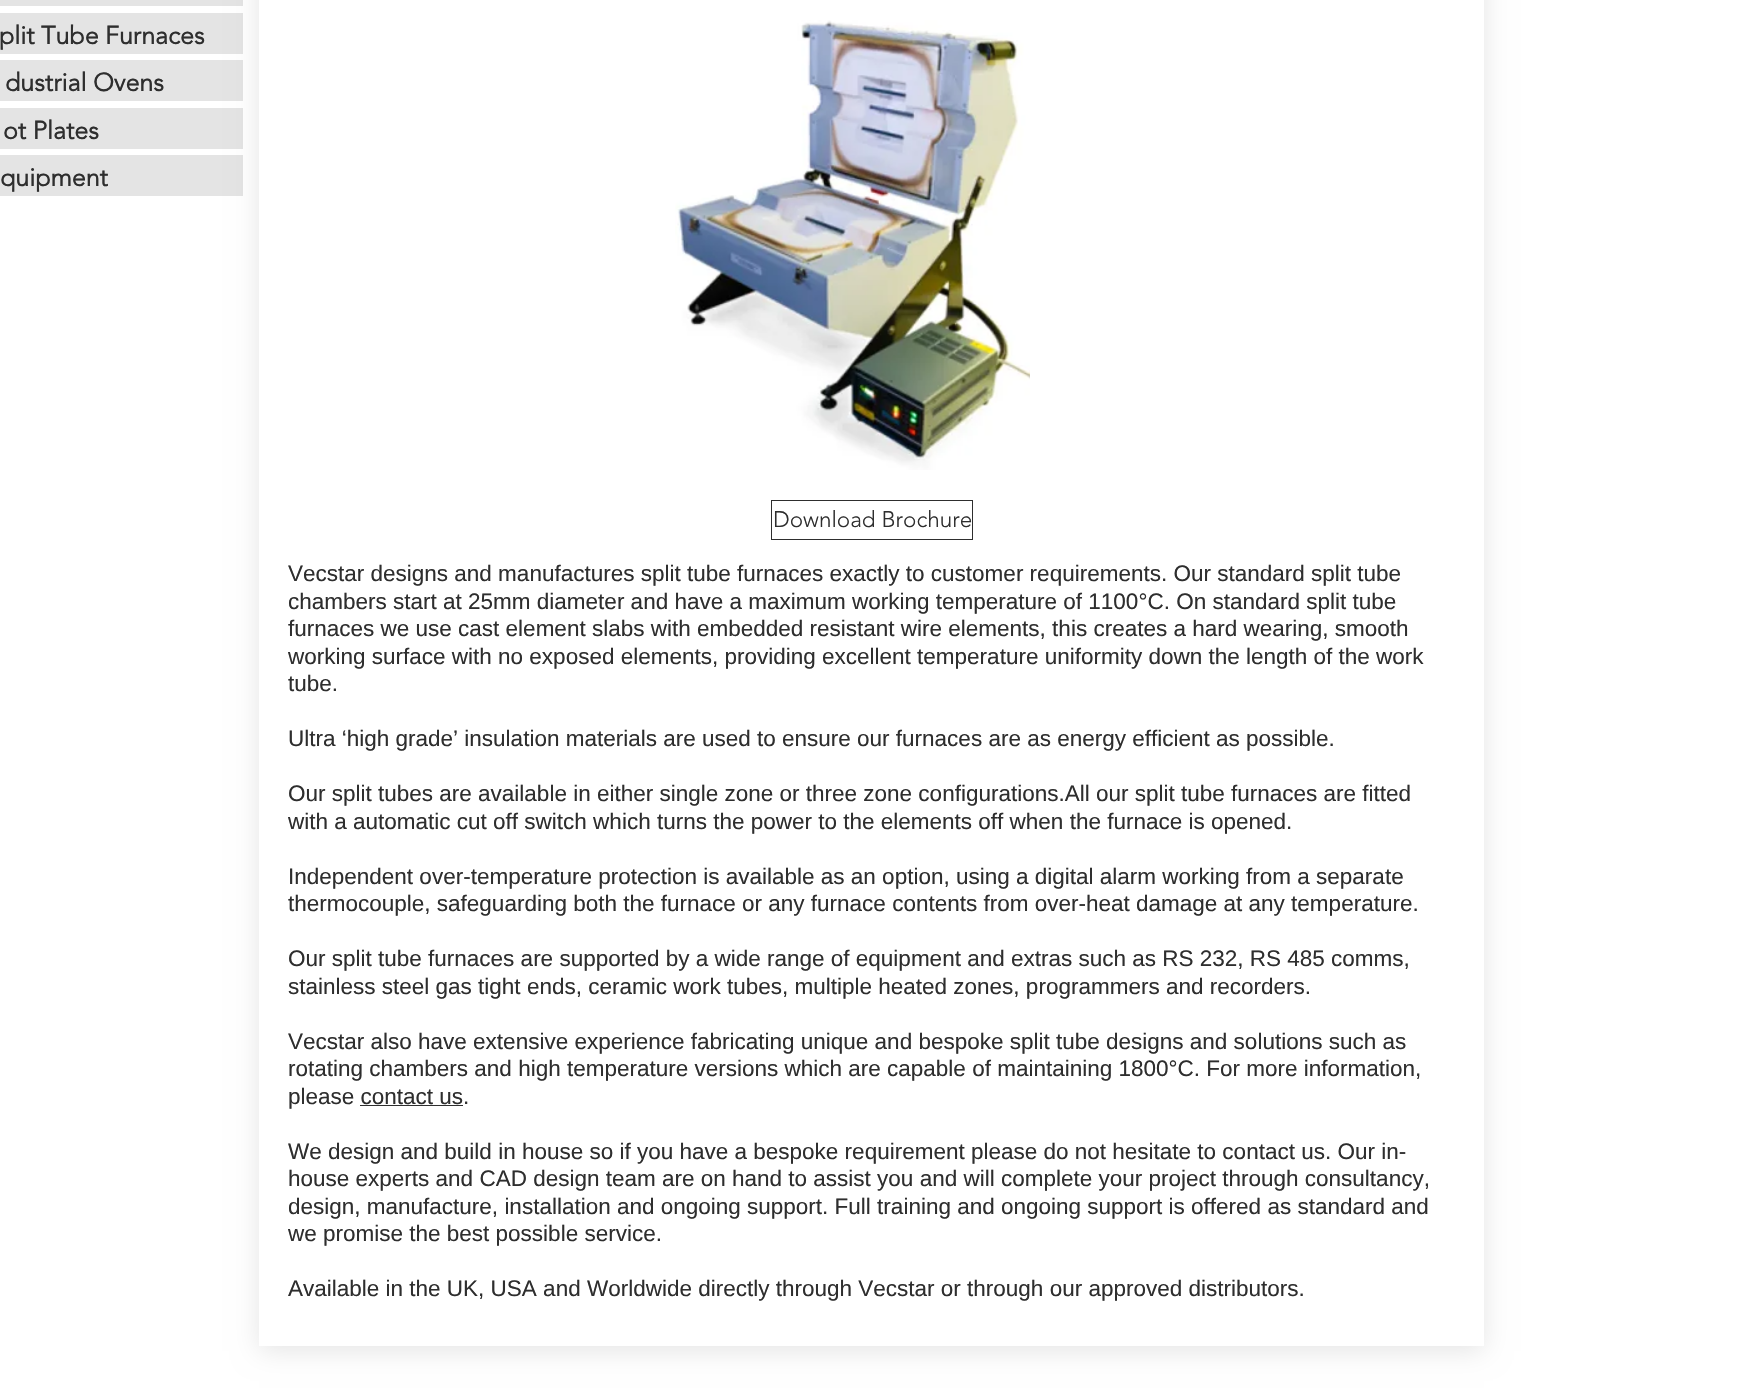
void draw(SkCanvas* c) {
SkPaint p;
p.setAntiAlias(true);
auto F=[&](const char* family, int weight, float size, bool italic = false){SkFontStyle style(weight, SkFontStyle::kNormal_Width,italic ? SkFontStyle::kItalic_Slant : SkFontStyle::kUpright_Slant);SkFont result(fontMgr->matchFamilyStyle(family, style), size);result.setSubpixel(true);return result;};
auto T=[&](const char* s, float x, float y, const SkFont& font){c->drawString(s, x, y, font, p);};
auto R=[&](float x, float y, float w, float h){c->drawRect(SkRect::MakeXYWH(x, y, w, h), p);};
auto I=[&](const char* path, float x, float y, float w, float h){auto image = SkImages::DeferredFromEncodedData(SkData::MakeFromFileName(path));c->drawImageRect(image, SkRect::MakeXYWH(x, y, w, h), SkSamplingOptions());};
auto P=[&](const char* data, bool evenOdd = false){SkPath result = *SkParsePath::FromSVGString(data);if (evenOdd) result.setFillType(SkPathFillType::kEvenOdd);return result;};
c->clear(0xffffffff);
p.setColor(0xffe4e4e4);
R(0,0,243,6);
R(0,13,243,41);
auto f1 = F("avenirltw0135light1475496",700,25);
p.setColor(0xff2e2e2e);
T("plit Tube Furnaces",-1,44,f1);
p.setColor(0xffe4e4e4);
R(0,60,243,41);
p.setColor(0xff2e2e2e);
T("dustrial Ovens",5,91,f1);
p.setColor(0xffe4e4e4);
R(0,108,243,41);
p.setColor(0xff2e2e2e);
T("ot Plates",3,139,f1);
p.setColor(0xffe4e4e4);
R(0,155,243,41);
p.setColor(0xff2e2e2e);
T("quipment",0,186,f1);
c->save();
c->clipPath(P("M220 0h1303v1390h-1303zm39-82h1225v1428h-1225z",true),true);
p.setColor(0x1a000000);
p.setMaskFilter(SkMaskFilter::MakeBlur(kNormal_SkBlurStyle, 12.5));
c->drawRect(SkRect::MakeXYWH(259,-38,1225,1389),p);
p.setMaskFilter(nullptr);
c->restore();
I("1.png",675,20,355,450);
p.setStroke(true);
p.setStrokeWidth(1);
p.setColor(0xff2e2e2e);
c->drawRect(SkRect::MakeXYWH(771.5,500.5,201,39),p);
auto f2 = F("avenirltw0135light1475496",300,22.5);
p.setStroke(false);
T("Download Brochure",773,527,f2);
auto f3 = F("Liberation Sans",400,22.5);
T("Vecstar designs and manufactures split tube furnaces exactly to customer requirements. Our standard split tube",288,581,f3);
T("chambers start at 25mm diameter and have a maximum working temperature of 1100°C. On standard split tube",288,609,f3);
T("furnaces we use cast element slabs with embedded resistant wire elements, this creates a hard wearing, smooth",288,636,f3);
T("working surface with no exposed elements, providing excellent temperature uniformity down the length of the work",288,664,f3);
T("tube.",288,691,f3);
T("Ultra ‘high grade’ insulation materials are used to ensure our furnaces are as energy efficient as possible.",288,746,f3);
T("Our split tubes are available in either single zone or three zone configurations.All our split tube furnaces are fitted",288,801,f3);
T("with a automatic cut off switch which turns the power to the elements off when the furnace is opened.",288,829,f3);
T("Independent over-temperature protection is available as an option, using a digital alarm working from a separate",288,884,f3);
T("thermocouple, safeguarding both the furnace or any furnace contents from over-heat damage at any temperature.",288,911,f3);
T("Our split tube furnaces are supported by a wide range of equipment and extras such as RS 232, RS 485 comms,",288,966,f3);
T("stainless steel gas tight ends, ceramic work tubes, multiple heated zones, programmers and recorders.",288,994,f3);
T("Vecstar also have extensive experience fabricating unique and bespoke split tube designs and solutions such as",288,1049,f3);
T("rotating chambers and high temperature versions which are capable of maintaining 1800°C. For more information,",288,1076,f3);
T("please contact us.",288,1104,f3);
R(360,1105,103,1);
T("We design and build in house so if you have a bespoke requirement please do not hesitate to contact us. Our in-",288,1159,f3);
T("house experts and CAD design team are on hand to assist you and will complete your project through consultancy,",288,1186,f3);
T("design, manufacture, installation and ongoing support. Full training and ongoing support is offered as standard and",288,1214,f3);
T("we promise the best possible service.",288,1241,f3);
T("Available in the UK, USA and Worldwide directly through Vecstar or through our approved distributors.",288,1296,f3);
}
